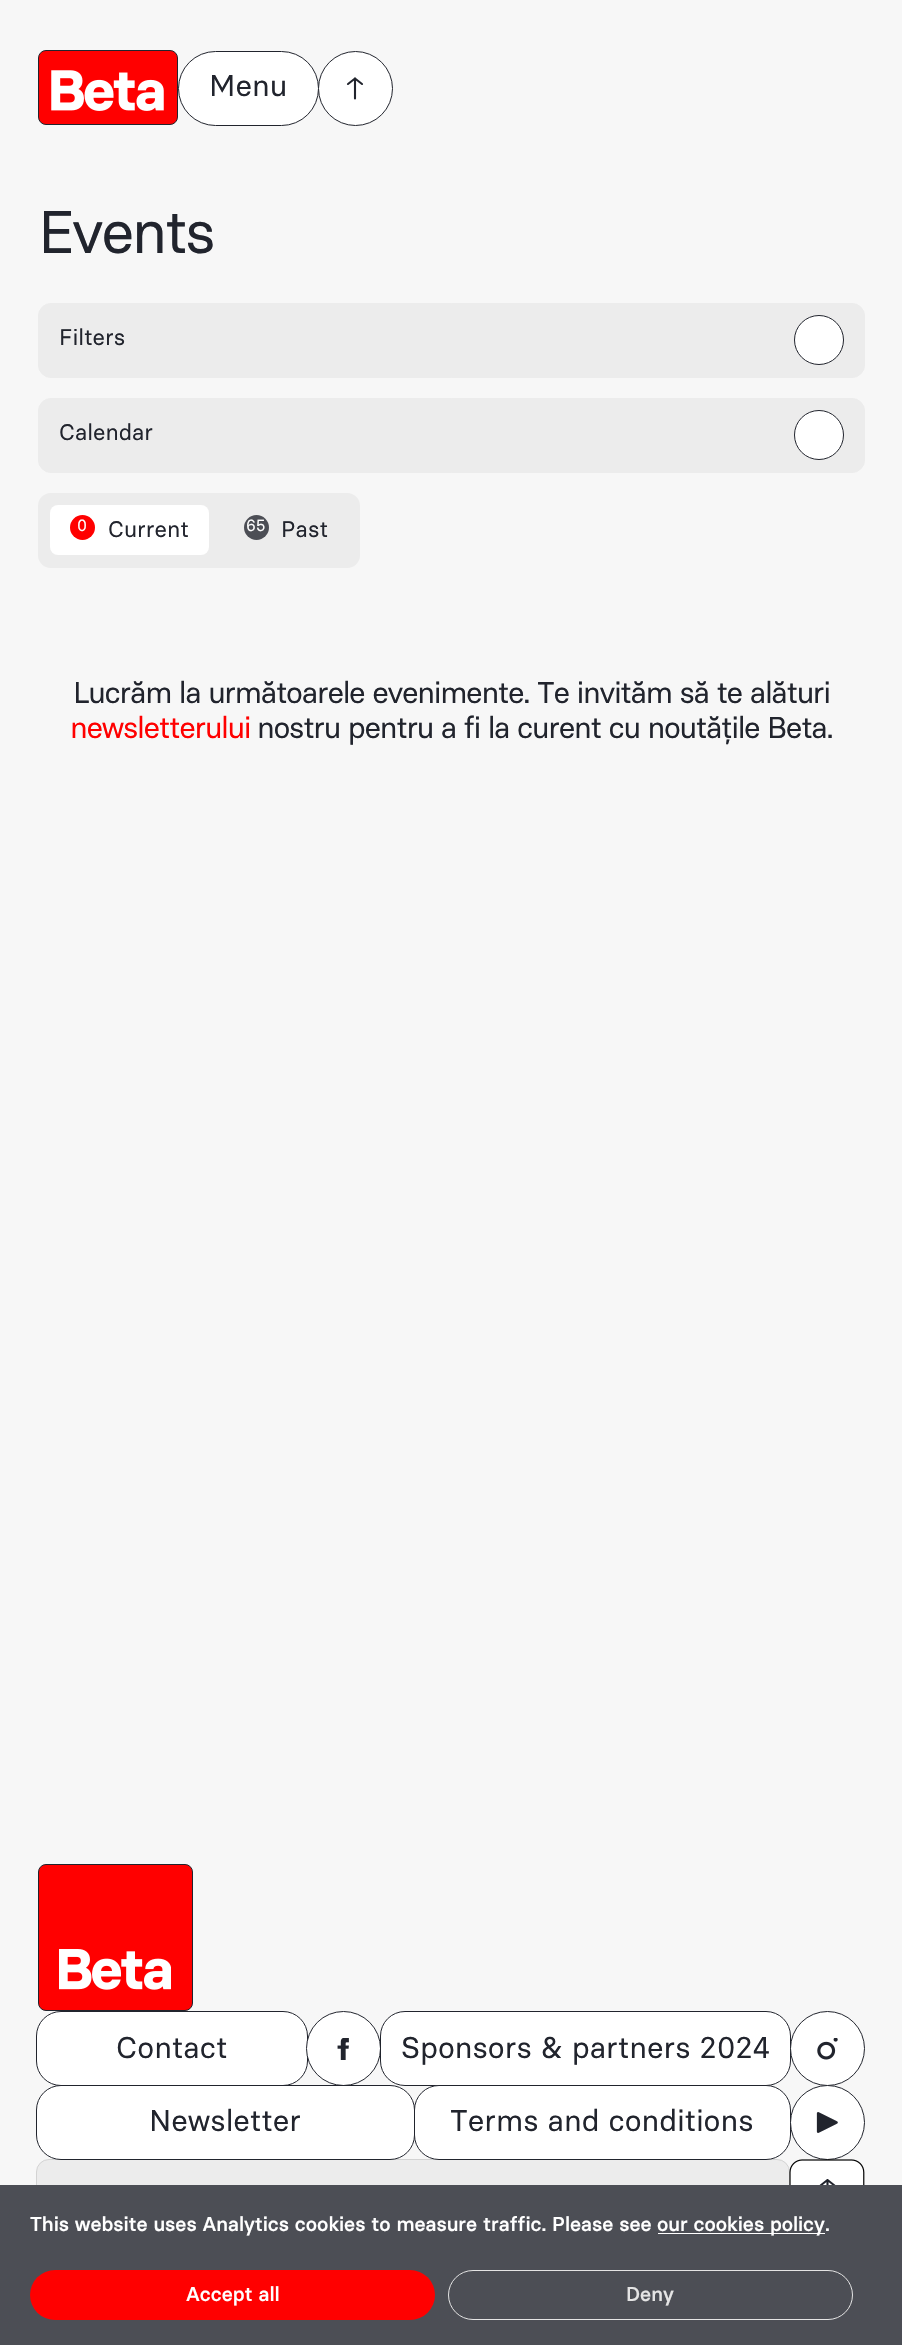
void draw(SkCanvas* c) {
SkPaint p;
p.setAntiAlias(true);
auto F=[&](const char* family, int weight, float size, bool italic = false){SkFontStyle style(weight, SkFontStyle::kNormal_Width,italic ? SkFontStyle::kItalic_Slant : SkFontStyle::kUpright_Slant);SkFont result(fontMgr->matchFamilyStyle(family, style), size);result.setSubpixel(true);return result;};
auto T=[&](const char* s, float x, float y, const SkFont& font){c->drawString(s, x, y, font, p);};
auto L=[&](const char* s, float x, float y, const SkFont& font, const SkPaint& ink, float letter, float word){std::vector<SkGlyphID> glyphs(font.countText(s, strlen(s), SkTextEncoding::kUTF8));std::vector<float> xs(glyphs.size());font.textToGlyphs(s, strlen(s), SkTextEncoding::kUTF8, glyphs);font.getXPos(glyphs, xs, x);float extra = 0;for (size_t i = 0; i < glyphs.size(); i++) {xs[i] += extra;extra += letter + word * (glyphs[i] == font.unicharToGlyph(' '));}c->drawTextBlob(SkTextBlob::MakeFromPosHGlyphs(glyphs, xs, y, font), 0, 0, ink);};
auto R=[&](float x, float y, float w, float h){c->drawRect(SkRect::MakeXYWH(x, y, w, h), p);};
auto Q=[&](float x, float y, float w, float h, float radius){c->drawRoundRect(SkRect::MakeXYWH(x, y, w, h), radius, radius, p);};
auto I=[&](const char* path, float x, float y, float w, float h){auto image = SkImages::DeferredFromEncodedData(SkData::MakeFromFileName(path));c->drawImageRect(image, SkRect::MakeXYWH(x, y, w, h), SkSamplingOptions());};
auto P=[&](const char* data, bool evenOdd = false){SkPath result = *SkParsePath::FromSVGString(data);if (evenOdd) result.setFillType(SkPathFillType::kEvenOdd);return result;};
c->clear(0xfff7f7f7);
p.setColor(0xffff0000);
c->drawRoundRect(SkRect::MakeXYWH(38.5,50.5,139,74),7.5,7.5,p);
p.setStroke(true);
p.setStrokeWidth(1);
p.setColor(0xff21242d);
c->drawRoundRect(SkRect::MakeXYWH(38.5,50.5,139,74),7.5,7.5,p);
I("1.png",51,70,113,41);
p.setStroke(false);
p.setColor(0xffffffff);
c->drawRoundRect(SkRect::MakeXYWH(178.5,51.5,140,74),37,37,p);
p.setStroke(true);
p.setColor(0xff21242d);
c->drawRoundRect(SkRect::MakeXYWH(178.5,51.5,140,74),37,37,p);
auto f1 = F("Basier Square",400,30);
p.setStroke(false);
T("Menu",209,96,f1);
p.setColor(0xffffffff);
c->drawCircle(355.5,88.5,37,p);
p.setStroke(true);
p.setColor(0xff21242d);
c->drawCircle(355.5,88.5,37,p);
p.setStrokeWidth(2.1);
p.setStrokeCap(SkPaint::kRound_Cap);
p.setStrokeJoin(SkPaint::kRound_Join);
c->drawPath(P("M355 98.5v-20m0 0l-7 5.5m7-5.5l7 5.5"),p);
auto f2 = F("Basier Square",400,60);
p.setStroke(false);
L("Events",38,253,f2,p,-2.5,0);
p.setColor(0xffececec);
c->drawRoundRect(SkRect::MakeXYWH(38.5,303.5,826,74),12.5,12.5,p);
p.setStroke(true);
p.setStrokeWidth(1);
p.setStrokeCap(SkPaint::kButt_Cap);
p.setStrokeJoin(SkPaint::kMiter_Join);
c->drawRoundRect(SkRect::MakeXYWH(38.5,303.5,826,74),12.5,12.5,p);
auto f3 = F("Basier Square",400,22.5);
p.setStroke(false);
p.setColor(0xff21242d);
T("Filters",59,345,f3);
p.setColor(0xffffffff);
c->drawCircle(819,340,24.5,p);
p.setStroke(true);
p.setColor(0xff21242d);
c->drawCircle(819,340,24.5,p);
p.setStroke(false);
p.setColor(0xffececec);
c->drawRoundRect(SkRect::MakeXYWH(38.5,398.5,826,74),12.5,12.5,p);
p.setStroke(true);
c->drawRoundRect(SkRect::MakeXYWH(38.5,398.5,826,74),12.5,12.5,p);
p.setStroke(false);
p.setColor(0xff21242d);
T("Calendar",59,440,f3);
p.setColor(0xffffffff);
c->drawCircle(819,435,24.5,p);
p.setStroke(true);
p.setColor(0xff21242d);
c->drawCircle(819,435,24.5,p);
p.setStroke(false);
p.setColor(0xffececec);
Q(38,493,322,75,13);
p.setColor(0xffffffff);
Q(50,505,159,50,8);
p.setColor(0xffff0000);
c->drawCircle(82.5,527.5,12.5,p);
auto f4 = F("Basier Square",400,16);
p.setColor(0xffffffff);
T("0",77,531,f4);
p.setColor(0xff21242d);
T("Current",108,537,f3);
p.setColor(0xff4c4e55);
c->drawCircle(256.5,527.5,12.5,p);
p.setColor(0xffffffff);
T("65",246,531,f4);
p.setColor(0xff21242d);
T("Past",281,537,f3);
L("Lucrăm la următoarele evenimente. Te invităm să te alături",73,703,f1,p,-1.25,0);
p.setColor(0xffff0000);
L("newsletterului",70,738,f1,p,-1.25,0);
p.setColor(0xff21242d);
L("nostru pentru a fi la curent cu noutățile Beta.",257,738,f1,p,-1.25,0);
p.setColor(0xffff0000);
c->drawRoundRect(SkRect::MakeXYWH(38.5,1864.5,154,146),7.5,7.5,p);
p.setStroke(true);
p.setColor(0xff21242d);
c->drawRoundRect(SkRect::MakeXYWH(38.5,1864.5,154,146),7.5,7.5,p);
I("2.png",59,1949,112,41);
p.setStroke(false);
p.setColor(0xffffffff);
c->drawRoundRect(SkRect::MakeXYWH(36.5,2011.5,271,74),24.5,24.5,p);
p.setStroke(true);
p.setColor(0xff21242d);
c->drawRoundRect(SkRect::MakeXYWH(36.5,2011.5,271,74),24.5,24.5,p);
p.setStroke(false);
T("Contact",116,2058,f1);
p.setColor(0xffffffff);
c->drawCircle(343.5,2048.5,37,p);
p.setStroke(true);
p.setColor(0xff21242d);
c->drawCircle(343.5,2048.5,37,p);
I("3.png",337,2038,12,22);
p.setStroke(false);
p.setColor(0xffffffff);
c->drawRoundRect(SkRect::MakeXYWH(380.5,2011.5,410,74),24.5,24.5,p);
p.setStroke(true);
p.setColor(0xff21242d);
c->drawRoundRect(SkRect::MakeXYWH(380.5,2011.5,410,74),24.5,24.5,p);
p.setStroke(false);
T("Sponsors & partners 2024",401,2058,f1);
p.setColor(0xffffffff);
c->drawCircle(827.5,2048.5,37,p);
p.setStroke(true);
p.setColor(0xff21242d);
c->drawCircle(827.5,2048.5,37,p);
I("4.png",817,2038,21,22);
p.setStroke(false);
p.setColor(0xffececec);
c->drawRoundRect(SkRect::MakeXYWH(36.5,2159.5,753,74),12.5,12.5,p);
p.setStroke(true);
p.setColor(0xffd3d3d3);
c->drawRoundRect(SkRect::MakeXYWH(36.5,2159.5,753,74),12.5,12.5,p);
p.setStroke(false);
p.setColor(0xffffffff);
c->drawRoundRect(SkRect::MakeXYWH(36.5,2085.5,378,74),24.5,24.5,p);
p.setStroke(true);
p.setColor(0xff21242d);
c->drawRoundRect(SkRect::MakeXYWH(36.5,2085.5,378,74),24.5,24.5,p);
p.setStroke(false);
T("Newsletter",149,2131,f1);
p.setColor(0xffffffff);
c->drawRoundRect(SkRect::MakeXYWH(414.5,2085.5,376,74),24.5,24.5,p);
p.setStroke(true);
p.setColor(0xff21242d);
c->drawRoundRect(SkRect::MakeXYWH(414.5,2085.5,376,74),24.5,24.5,p);
p.setStroke(false);
T("Terms and conditions",450,2131,f1);
p.setColor(0xffffffff);
c->drawCircle(827.5,2122.5,37,p);
p.setStroke(true);
p.setColor(0xff21242d);
c->drawCircle(827.5,2122.5,37,p);
I("5.png",816,2112,22,21);
I("6.png",789,2159,76,26);
p.setStrokeWidth(2.1);
p.setStrokeCap(SkPaint::kRound_Cap);
p.setStrokeJoin(SkPaint::kRound_Join);
c->drawPath(P("M827.5 2199.5v-19.5m0 0l-7 5.5m7-5.5l7 5.5"),p);
p.setStroke(false);
p.setColor(0xff4c4e55);
R(0,2185,902,160);
auto f5 = F("Basier Square",500,20);
p.setColor(0xffffffff);
T("This website uses Analytics cookies to measure traffic. Please see",30,2231,f5);
R(658,2233,167,1);
T("our cookies policy.",657,2231,f5);
p.setColor(0xffff0000);
Q(30,2270,405,50,25);
p.setColor(0xffffffff);
T("Accept all",186,2301,f5);
p.setStroke(true);
p.setStrokeWidth(1);
p.setStrokeCap(SkPaint::kButt_Cap);
p.setStrokeJoin(SkPaint::kMiter_Join);
p.setColor(0xffe4e4e4);
c->drawRoundRect(SkRect::MakeXYWH(448.5,2270.5,404,49),24.5,24.5,p);
p.setStroke(false);
T("Deny",626,2301,f5);
}
